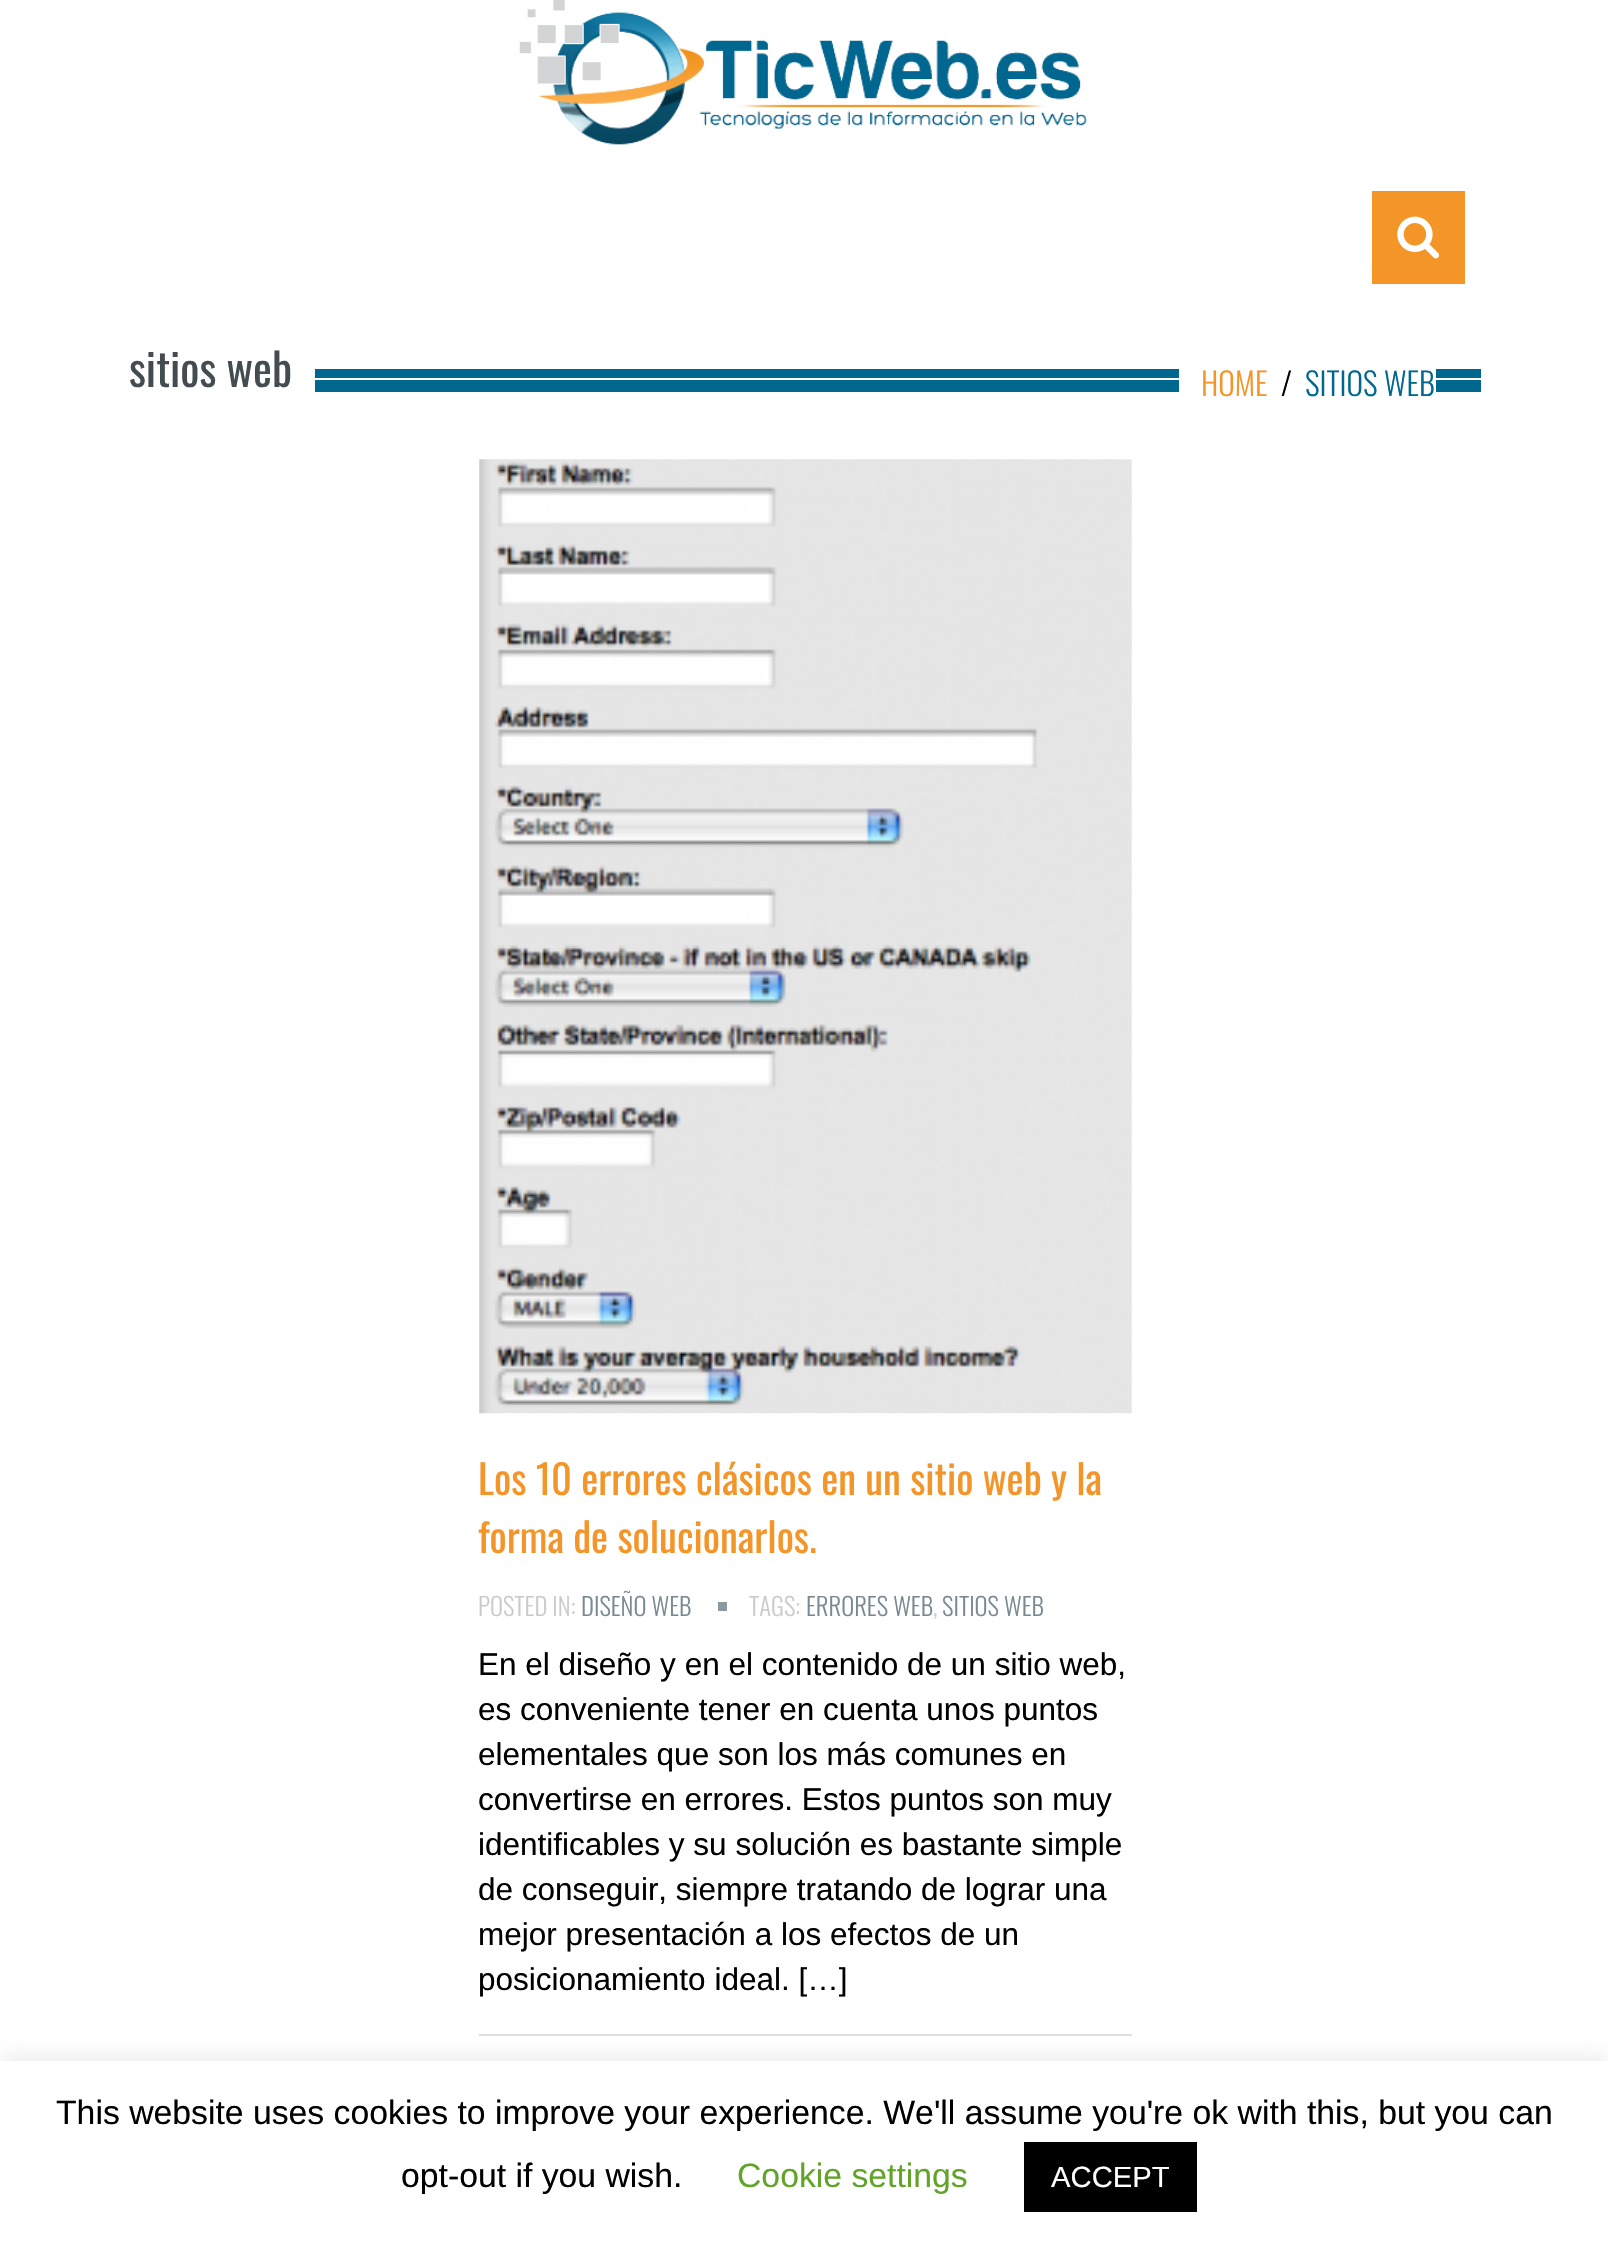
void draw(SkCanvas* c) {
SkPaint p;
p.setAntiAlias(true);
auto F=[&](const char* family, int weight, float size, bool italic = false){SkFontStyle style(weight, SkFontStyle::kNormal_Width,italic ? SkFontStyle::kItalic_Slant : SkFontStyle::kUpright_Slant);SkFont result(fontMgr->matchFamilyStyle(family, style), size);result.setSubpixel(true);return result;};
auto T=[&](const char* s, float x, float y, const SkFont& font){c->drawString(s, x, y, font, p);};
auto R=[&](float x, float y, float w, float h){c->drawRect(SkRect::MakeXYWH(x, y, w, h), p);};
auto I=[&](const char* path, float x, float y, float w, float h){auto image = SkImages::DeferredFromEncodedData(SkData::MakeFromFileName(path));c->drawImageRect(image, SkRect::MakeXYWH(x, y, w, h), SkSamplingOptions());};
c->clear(0xffffffff);
I("1.png",519,0,568,145);
p.setColor(0xfff39627);
R(1372,191,93,93);
I("2.png",1397,216,42,43);
auto f1 = F("Oswald",400,45);
p.setColor(0xff434c51);
T("sitios web",129,387,f1);
p.setColor(0xff00678f);
R(315,369,1166,23);
p.setColor(0xffffffff);
R(315,378,1166,2);
p.setColor(0xffdfdfdf);
R(479,2034,653,2);
I("3.png",479,459,653,955);
auto f2 = F("Oswald",400,40.5);
p.setColor(0xfff39528);
T("Los 10 errores clásicos en un sitio web y la",478,1495,f2);
T("forma de solucionarlos.",478,1553,f2);
auto f3 = F("Oswald",300,24.75);
p.setColor(0xffcbcbcb);
T("POSTED IN:",478,1616,f3);
p.setColor(0xff798992);
T("DISEÑO WEB",581,1616,f3);
p.setColor(0xff8b99a1);
R(718,1602,9,9);
p.setColor(0xffcbcbcb);
T("TAGS:",749,1616,f3);
p.setColor(0xff798992);
T("ERRORES WEB",806,1616,f3);
T("SITIOS WEB",942,1616,f3);
p.setColor(0xffcbcbcb);
T(",",933,1616,f3);
auto f4 = F("Liberation Sans",400,31.5);
p.setColor(0xff000000);
T("En el diseño y en el contenido de un sitio web,",478,1675,f4);
T("es conveniente tener en cuenta unos puntos",478,1720,f4);
T("elementales que son los más comunes en",478,1765,f4);
T("convertirse en errores. Estos puntos son muy",478,1810,f4);
T("identificables y su solución es bastante simple",478,1855,f4);
T("de conseguir, siempre tratando de lograr una",478,1900,f4);
T("mejor presentación a los efectos de un",478,1945,f4);
T("posicionamiento ideal. […]",478,1990,f4);
p.setColor(0xffffffff);
R(1179,369,257,23);
auto f5 = F("Oswald",300,31.5);
p.setColor(0xfff39528);
T("HOME",1201,396,f5);
p.setColor(0xff000000);
T("/",1281,396,f5);
p.setColor(0xff00678f);
T("SITIOS WEB",1305,396,f5);
p.setColor(0x4dacabab);
p.setMaskFilter(SkMaskFilter::MakeBlur(kNormal_SkBlurStyle, 11));
c->drawRect(SkRect::MakeXYWH(0,2059,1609,189),p);
p.setMaskFilter(nullptr);
p.setColor(0xffffffff);
R(0,2061,1608,188);
auto f6 = F("Liberation Sans",400,33.75);
p.setColor(0xff000000);
T("This website uses cookies to improve your experience. We'll assume you're ok with this, but you can",56,2124,f6);
T("opt-out if you wish.",401,2187,f6);
p.setColor(0xff62a329);
T("Cookie settings",737,2187,f6);
p.setColor(0xff000000);
R(1024,2142,173,70);
auto f7 = F("Liberation Sans",400,29.25);
p.setColor(0xffffffff);
T("ACCEPT",1051,2187,f7);
}
